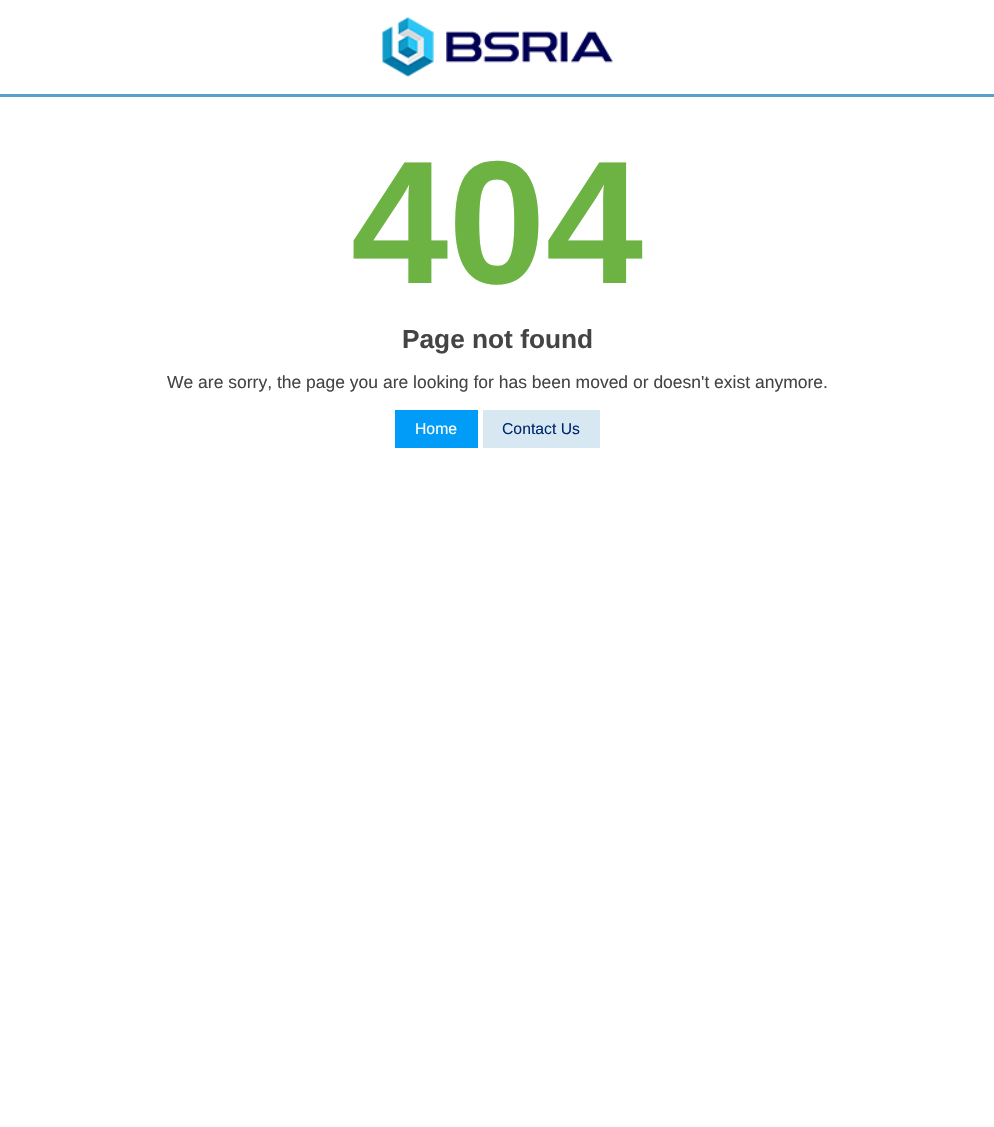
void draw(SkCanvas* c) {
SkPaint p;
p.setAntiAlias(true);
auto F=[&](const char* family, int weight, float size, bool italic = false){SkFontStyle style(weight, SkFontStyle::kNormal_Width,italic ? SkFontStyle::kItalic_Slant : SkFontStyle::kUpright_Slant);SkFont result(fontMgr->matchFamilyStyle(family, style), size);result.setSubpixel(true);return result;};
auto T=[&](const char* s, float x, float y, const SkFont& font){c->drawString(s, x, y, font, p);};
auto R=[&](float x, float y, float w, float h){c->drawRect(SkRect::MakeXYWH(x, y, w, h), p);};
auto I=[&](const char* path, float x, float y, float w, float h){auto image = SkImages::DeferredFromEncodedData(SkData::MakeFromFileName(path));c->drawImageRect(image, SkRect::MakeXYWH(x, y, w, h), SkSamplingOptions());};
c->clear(0xffffffff);
p.setColor(0xff59a0cc);
R(0,94,994,3);
I("1.png",382,17,231,60);
auto f1 = F("Liberation Sans",700,175);
p.setColor(0xff6db344);
T("404",351,283,f1);
auto f2 = F("Liberation Sans",700,26.25);
p.setColor(0xff444444);
T("Page not found",402,348,f2);
auto f3 = F("Liberation Sans",400,17.5);
T("We are sorry, the page you are looking for has been moved or doesn't exist anymore.",167,388,f3);
p.setColor(0xff019cf8);
R(395,410,83,38);
auto f4 = F("Liberation Sans",400,15.75);
p.setColor(0xffffffff);
T("Home",415,434,f4);
p.setColor(0xffd7e8f2);
R(483,410,117,38);
p.setColor(0xff00296b);
T("Contact Us",502,434,f4);
}
